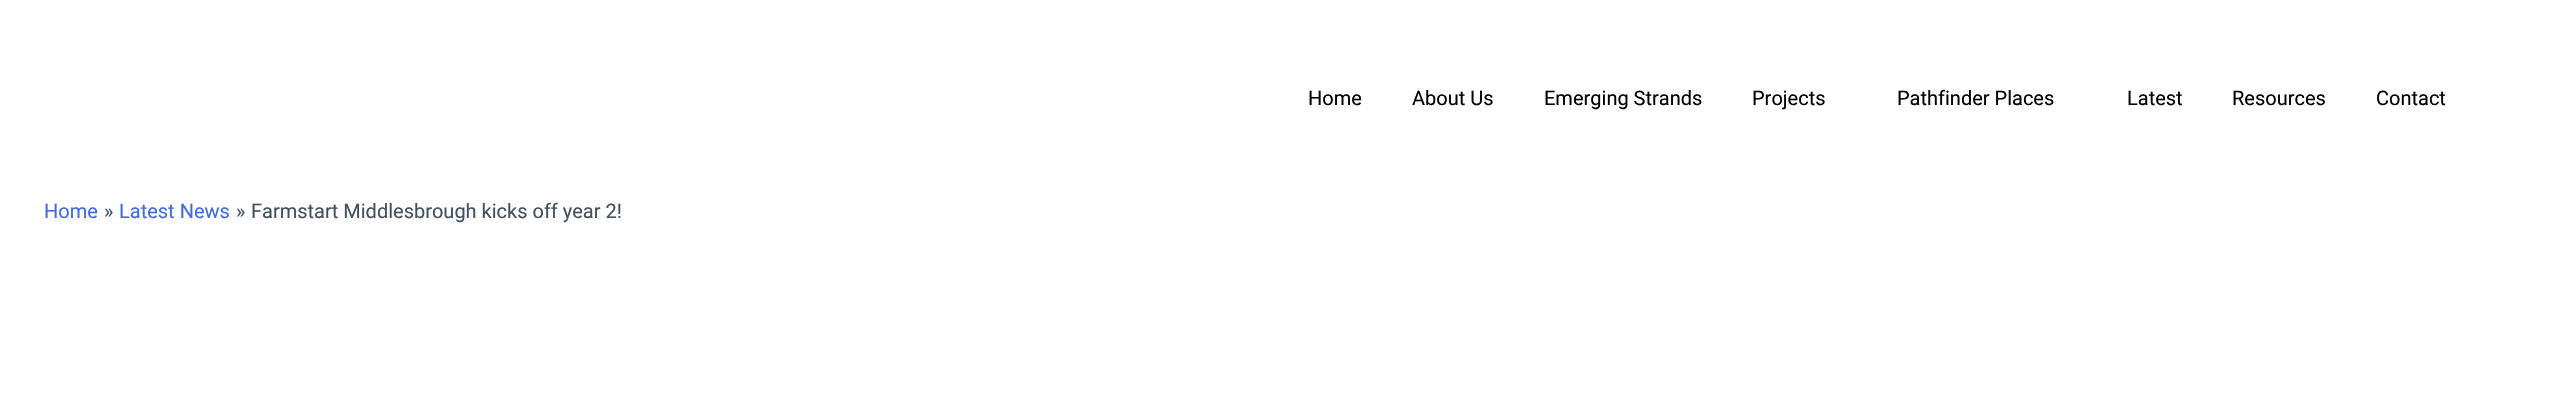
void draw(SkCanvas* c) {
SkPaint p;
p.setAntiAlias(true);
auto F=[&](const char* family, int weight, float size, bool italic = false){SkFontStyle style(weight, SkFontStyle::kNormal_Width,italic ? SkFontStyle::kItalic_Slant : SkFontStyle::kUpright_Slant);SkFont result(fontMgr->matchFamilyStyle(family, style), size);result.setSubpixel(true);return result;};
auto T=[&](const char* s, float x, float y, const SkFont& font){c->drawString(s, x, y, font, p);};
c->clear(0xffffffff);
auto f1 = F("Roboto",400,20);
p.setColor(0xff000000);
T("Home",1308,105,f1);
T("About Us",1412,105,f1);
T("Emerging Strands",1544,105,f1);
T("Projects",1752,105,f1);
T("Pathfinder Places",1897,105,f1);
T("Latest",2127,105,f1);
T("Resources",2232,105,f1);
T("Contact",2376,105,f1);
p.setColor(0xff4169e1);
T("Home",44,218,f1);
p.setColor(0xff41505d);
T("»",104,218,f1);
p.setColor(0xff4169e1);
T("Latest News",119,218,f1);
p.setColor(0xff41505d);
T("»",236,218,f1);
T("Farmstart Middlesbrough kicks off year 2!",251,218,f1);
}
